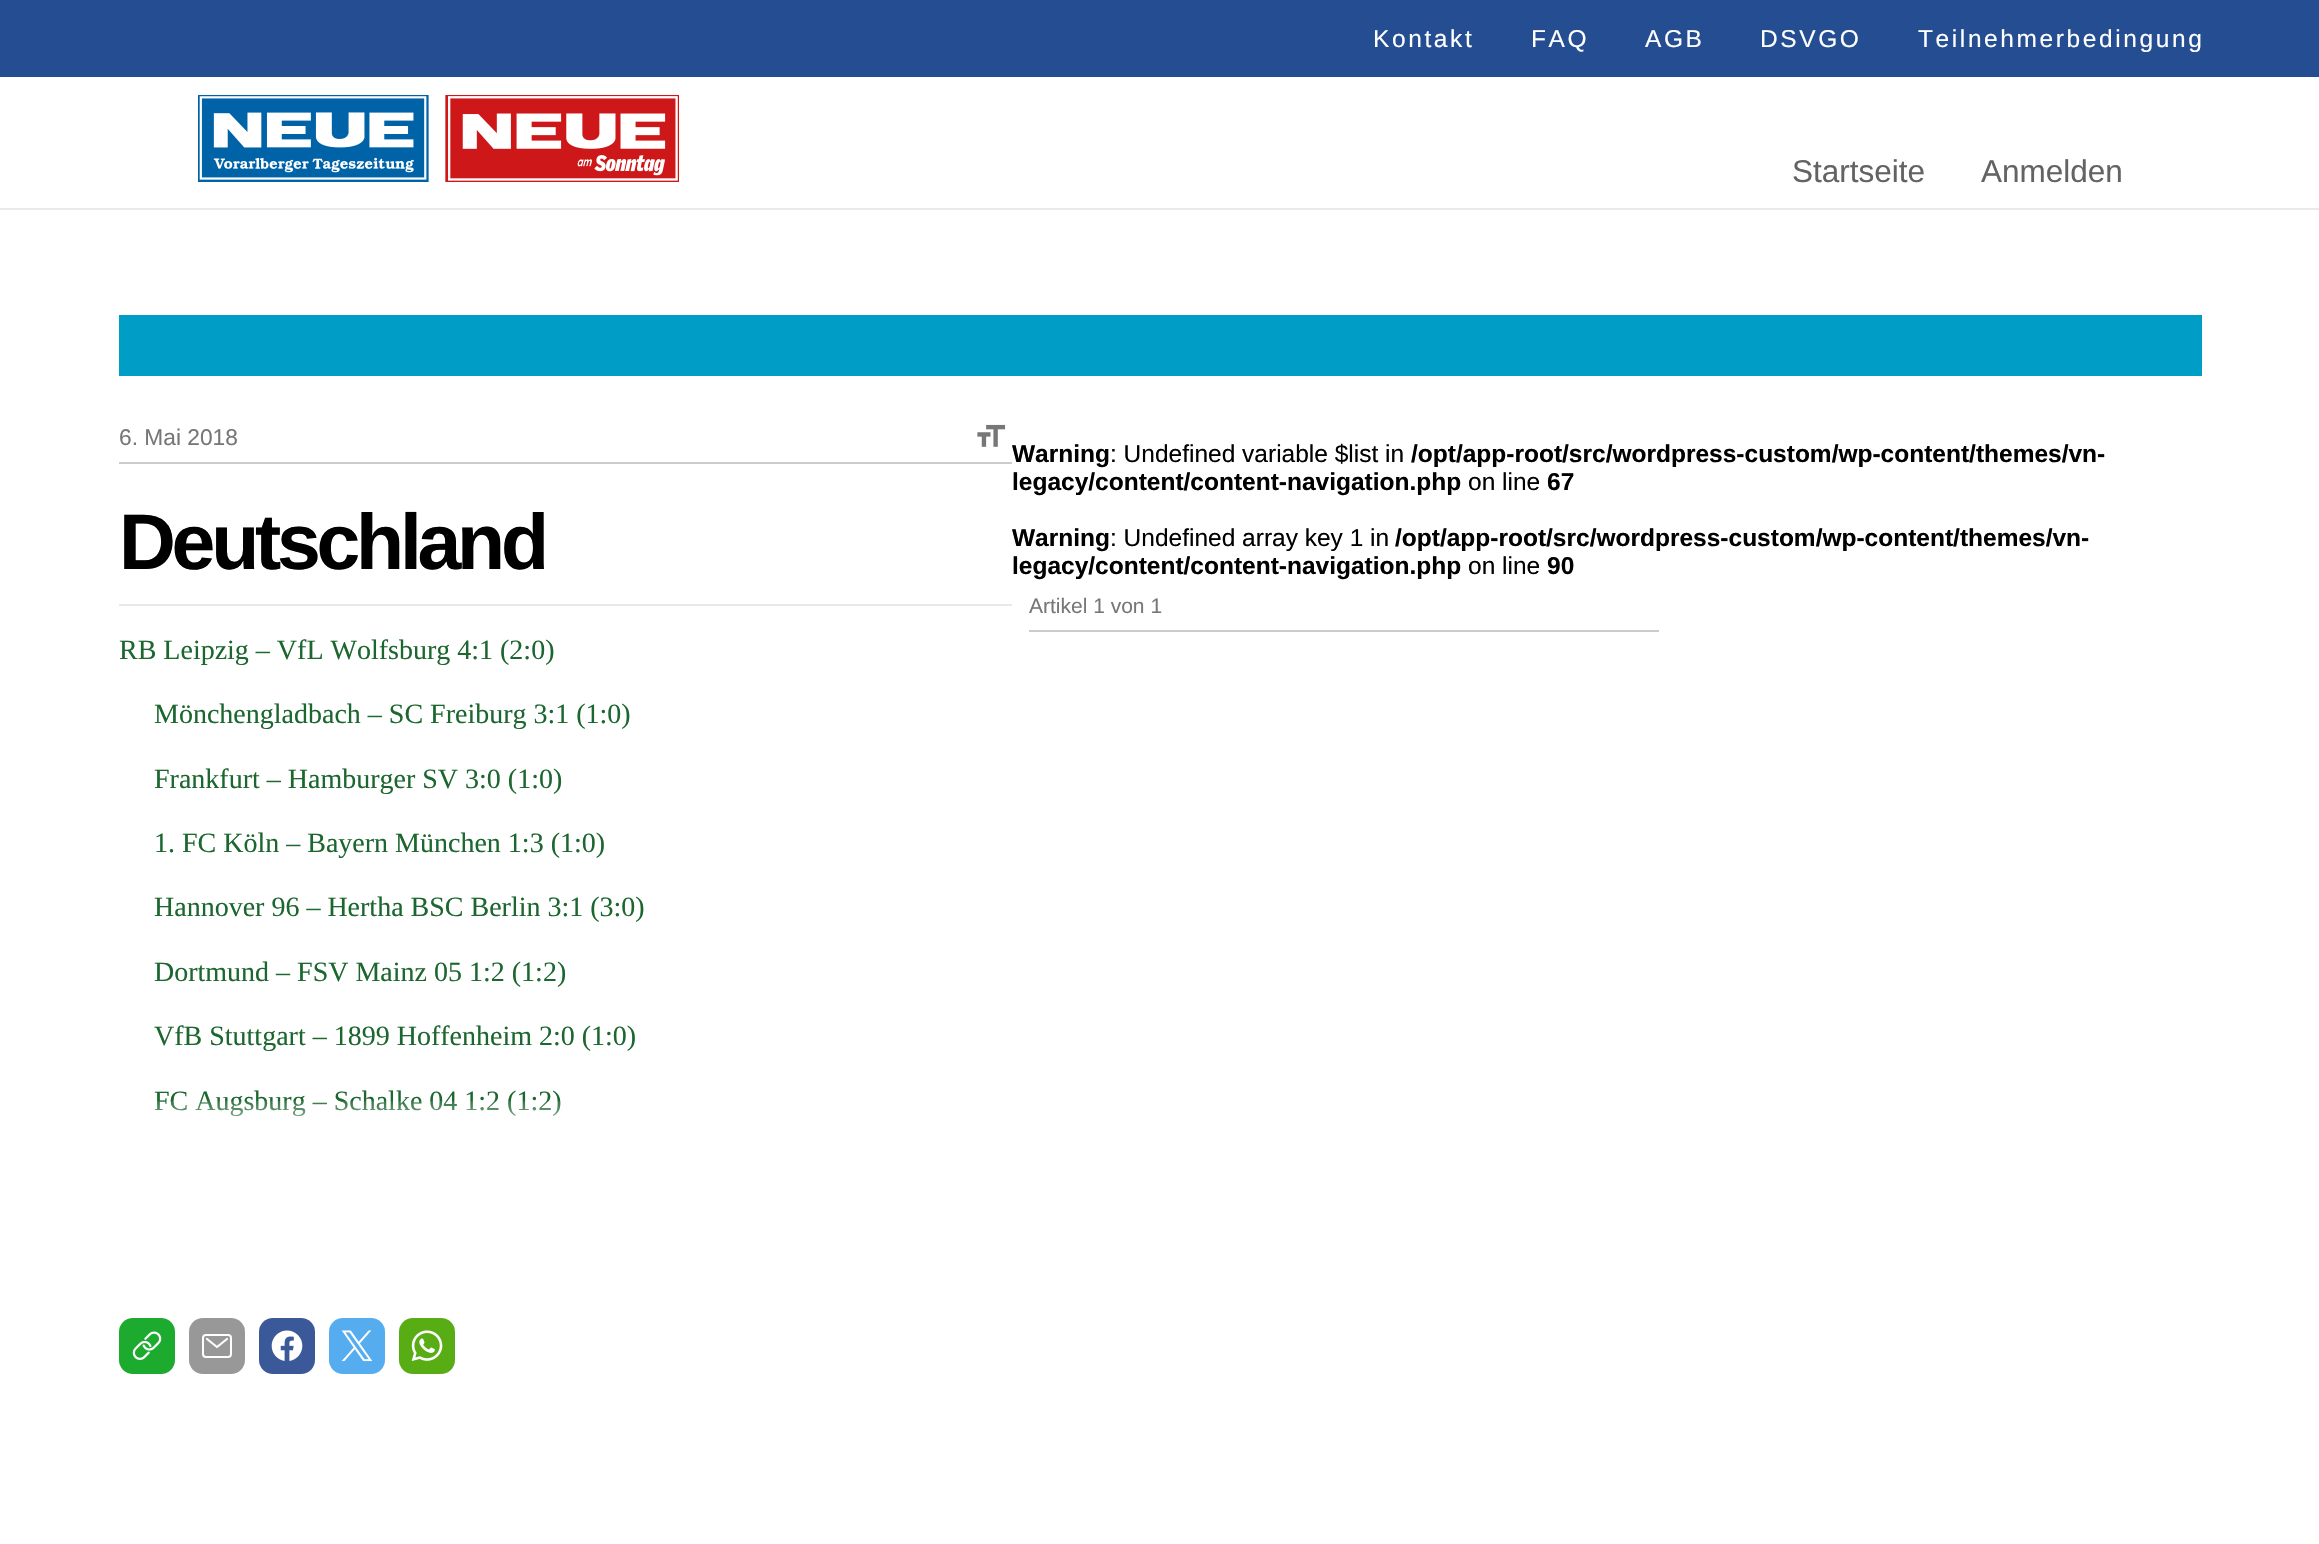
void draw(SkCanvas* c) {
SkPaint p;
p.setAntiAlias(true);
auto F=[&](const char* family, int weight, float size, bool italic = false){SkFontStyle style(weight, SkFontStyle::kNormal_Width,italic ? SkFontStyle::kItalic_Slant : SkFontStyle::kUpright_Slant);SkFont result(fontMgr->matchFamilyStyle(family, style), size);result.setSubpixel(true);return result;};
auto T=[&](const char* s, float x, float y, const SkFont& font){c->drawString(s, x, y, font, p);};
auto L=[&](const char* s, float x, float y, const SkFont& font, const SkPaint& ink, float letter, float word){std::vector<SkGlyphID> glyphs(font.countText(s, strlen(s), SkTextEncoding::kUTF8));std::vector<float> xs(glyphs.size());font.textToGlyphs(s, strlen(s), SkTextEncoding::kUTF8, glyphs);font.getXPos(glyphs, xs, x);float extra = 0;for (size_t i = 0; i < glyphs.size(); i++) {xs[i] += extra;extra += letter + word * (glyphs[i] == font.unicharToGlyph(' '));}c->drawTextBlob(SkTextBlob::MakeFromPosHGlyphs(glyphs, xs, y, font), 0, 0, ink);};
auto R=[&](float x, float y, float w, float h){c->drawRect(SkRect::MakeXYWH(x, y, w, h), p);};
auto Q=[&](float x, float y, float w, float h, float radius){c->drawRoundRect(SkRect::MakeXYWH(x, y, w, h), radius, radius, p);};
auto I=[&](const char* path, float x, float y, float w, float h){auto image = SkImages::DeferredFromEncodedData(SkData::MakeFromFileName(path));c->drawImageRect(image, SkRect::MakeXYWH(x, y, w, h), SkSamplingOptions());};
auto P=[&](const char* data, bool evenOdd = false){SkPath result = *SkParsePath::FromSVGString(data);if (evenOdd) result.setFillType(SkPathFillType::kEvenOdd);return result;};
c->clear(0xffffffff);
p.setColor(0xffe9e9e9);
R(0,208,2319,2);
p.setColor(0xff244d92);
R(0,0,2319,77);
auto f1 = F("Liberation Sans",400,24.5);
p.setColor(0xffffffff);
L("Kontakt",1373,47,f1,p,2.6,0);
L("FAQ",1531,47,f1,p,2.6,0);
L("AGB",1645,47,f1,p,2.6,0);
L("DSVGO",1760,47,f1,p,2.6,0);
L("Teilnehmerbedingung",1918,47,f1,p,2.6,0);
I("1.png",198,95,481,87);
auto f2 = F("Liberation Sans",400,31.5);
p.setColor(0xff636363);
T("Startseite",1792,182,f2);
T("Anmelden",1981,182,f2);
p.setColor(0xff009dc6);
R(119,315,2083,61);
auto f3 = F("Liberation Sans",700,24.5);
p.setColor(0xff000000);
T("Warning",1012,462,f3);
p.setColor(0xffcccccc);
R(119,462,893,2);
auto f4 = F("Liberation Sans",400,22.75);
p.setColor(0xff777777);
T("6. Mai 2018",119,445,f4);
I("2.png",977,424,29,23);
p.setColor(0xffe9e9e9);
R(119,604,893,2);
auto f5 = F("Liberation Sans",700,78.75);
p.setColor(0xff000000);
L("Deutschland",119,569,f5,p,-4.25,0);
auto f6 = F("Liberation Serif",400,28);
p.setColor(0xff1c672f);
T("RB Leipzig – VfL Wolfsburg 4:1 (2:0)",119,659,f6);
T("Mönchengladbach – SC Freiburg 3:1 (1:0)",154,723,f6);
T("Frankfurt – Hamburger SV 3:0 (1:0)",154,788,f6);
T("1. FC Köln – Bayern München 1:3 (1:0)",154,852,f6);
T("Hannover 96 – Hertha BSC Berlin 3:1 (3:0)",154,916,f6);
T("Dortmund – FSV Mainz 05 1:2 (1:2)",154,981,f6);
T("VfB Stuttgart – 1899 Hoffenheim 2:0 (1:0)",154,1045,f6);
T("FC Augsburg – Schalke 04 1:2 (1:2)",154,1110,f6);
{
const SkColor colors[] = {0xffffffff,0x1affffff};
const float stops[] = {.6,1};
const SkPoint ends[] = {{565,1213}, {565,1101}};
p.setShader(SkGradientShader::MakeLinear(ends, colors, stops, 2, SkTileMode::kClamp));
p.setAlpha(255);
}
R(155,1101,406,15);
p.setShader(nullptr);
p.setColor(0xff1caa2f);
Q(119,1318,56,56,14);
I("3.png",132,1331,30,29);
p.setColor(0xff989898);
Q(189,1318,56,56,14);
p.setStroke(true);
p.setStrokeWidth(2);
p.setColor(0xffffffff);
c->drawRoundRect(SkRect::MakeXYWH(203,1335,28,22),3,3,p);
p.setStrokeWidth(2.2);
p.setStrokeCap(SkPaint::kRound_Cap);
p.setStrokeJoin(SkPaint::kRound_Join);
c->drawPath(P("M207 1339l10 8l10-8"),p);
p.setStroke(false);
p.setColor(0xff3b5998);
Q(259,1318,56,56,14);
I("4.png",271,1330,32,31);
p.setColor(0xff55acee);
Q(329,1318,56,56,14);
I("5.png",341,1330,32,32);
p.setColor(0xff58ad15);
Q(399,1318,56,56,14);
I("6.png",411,1330,32,31);
p.setColor(0xff000000);
T(": Undefined variable $list in",1110,462,f1);
T("/opt/app-root/src/wordpress-custom/wp-content/themes/vn-",1411,462,f3);
T("legacy/content/content-navigation.php",1012,490,f3);
T("on line",1468,490,f1);
T("67",1547,490,f3);
T("Warning",1012,546,f3);
T(": Undefined array key 1 in",1110,546,f1);
T("/opt/app-root/src/wordpress-custom/wp-content/themes/vn-",1395,546,f3);
T("legacy/content/content-navigation.php",1012,574,f3);
T("on line",1468,574,f1);
T("90",1547,574,f3);
p.setColor(0xffcccccc);
R(1029,630,630,2);
auto f7 = F("Liberation Sans",400,21);
p.setColor(0xff777777);
T("Artikel 1 von 1",1029,613,f7);
}
